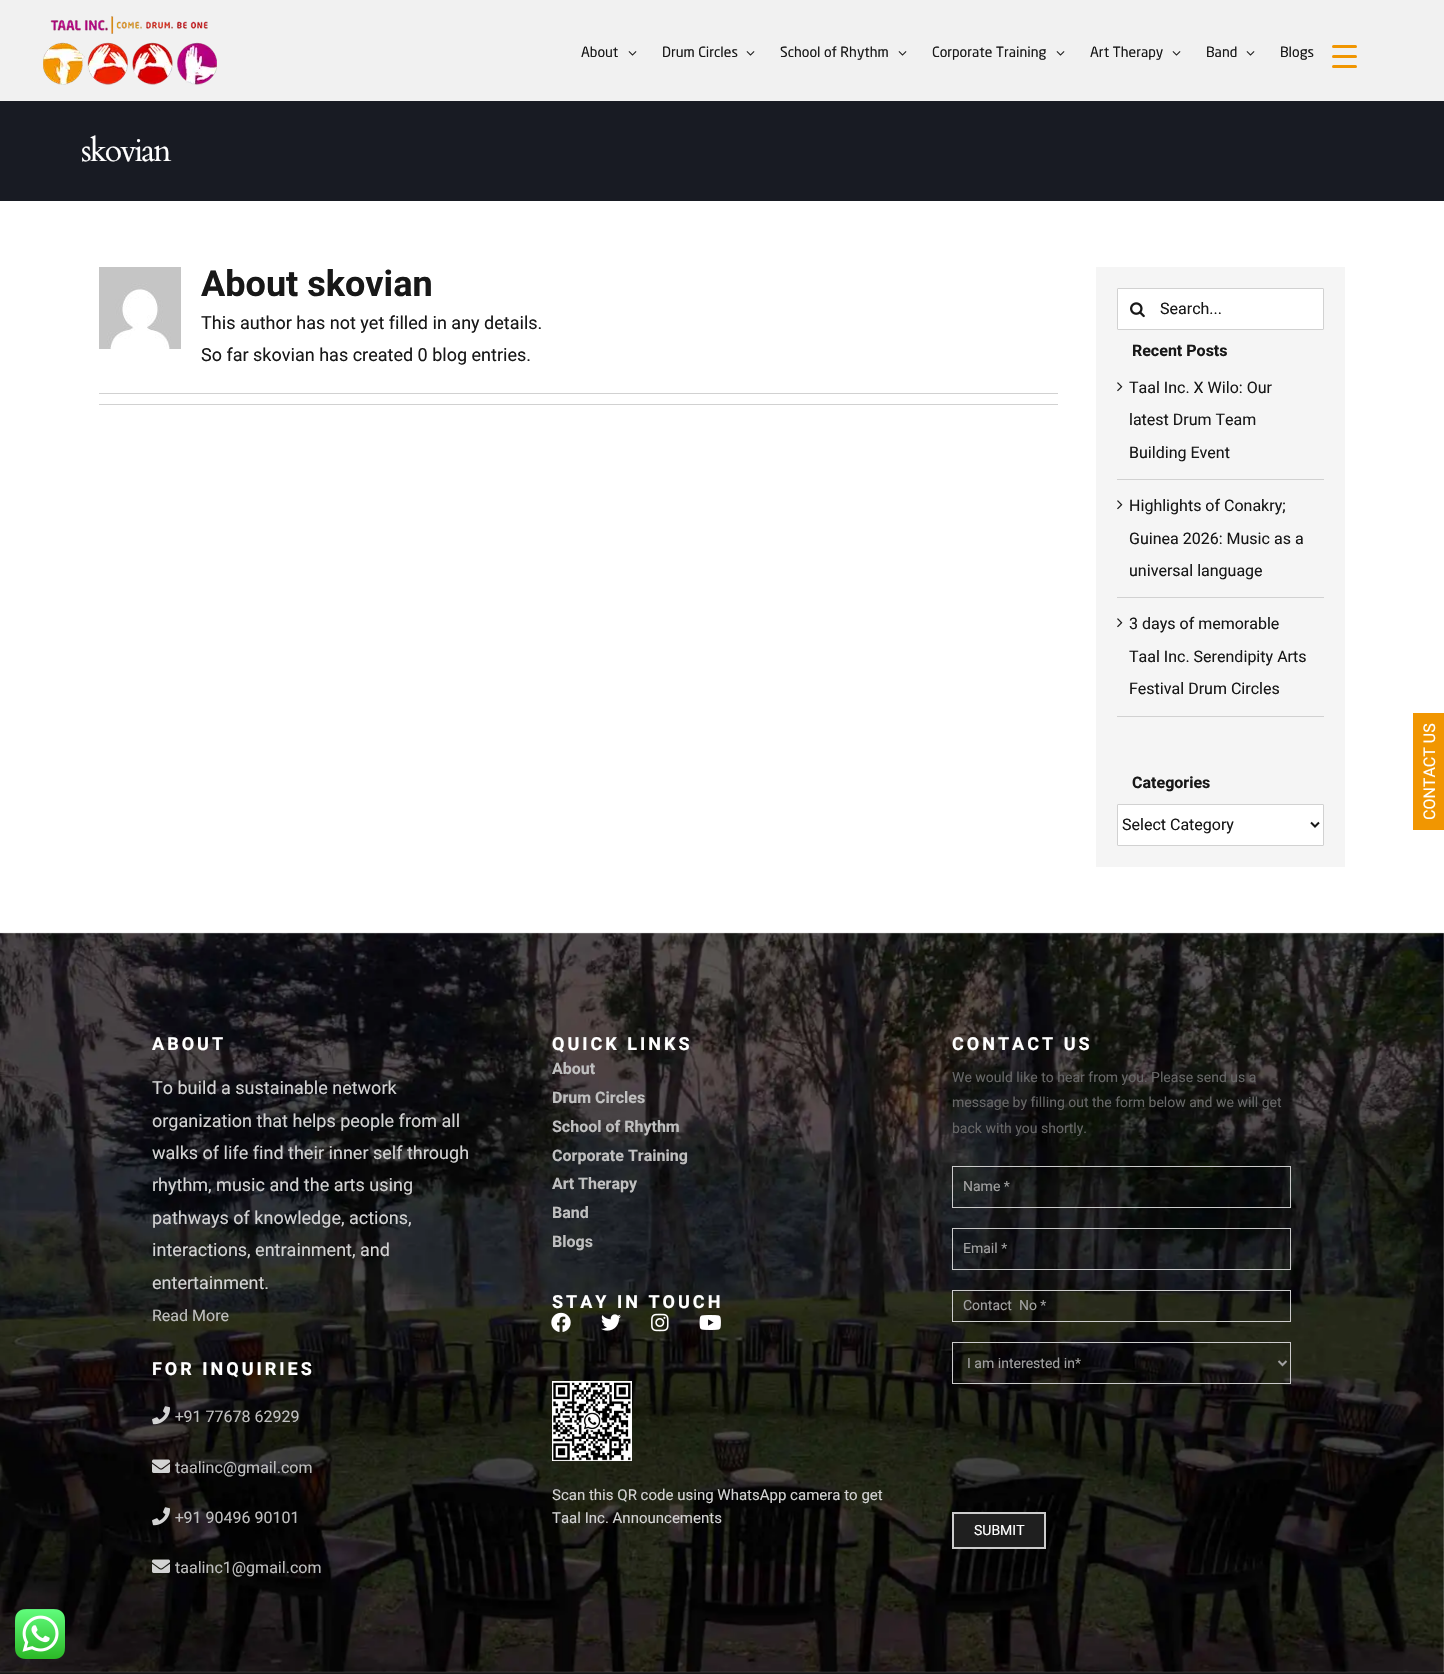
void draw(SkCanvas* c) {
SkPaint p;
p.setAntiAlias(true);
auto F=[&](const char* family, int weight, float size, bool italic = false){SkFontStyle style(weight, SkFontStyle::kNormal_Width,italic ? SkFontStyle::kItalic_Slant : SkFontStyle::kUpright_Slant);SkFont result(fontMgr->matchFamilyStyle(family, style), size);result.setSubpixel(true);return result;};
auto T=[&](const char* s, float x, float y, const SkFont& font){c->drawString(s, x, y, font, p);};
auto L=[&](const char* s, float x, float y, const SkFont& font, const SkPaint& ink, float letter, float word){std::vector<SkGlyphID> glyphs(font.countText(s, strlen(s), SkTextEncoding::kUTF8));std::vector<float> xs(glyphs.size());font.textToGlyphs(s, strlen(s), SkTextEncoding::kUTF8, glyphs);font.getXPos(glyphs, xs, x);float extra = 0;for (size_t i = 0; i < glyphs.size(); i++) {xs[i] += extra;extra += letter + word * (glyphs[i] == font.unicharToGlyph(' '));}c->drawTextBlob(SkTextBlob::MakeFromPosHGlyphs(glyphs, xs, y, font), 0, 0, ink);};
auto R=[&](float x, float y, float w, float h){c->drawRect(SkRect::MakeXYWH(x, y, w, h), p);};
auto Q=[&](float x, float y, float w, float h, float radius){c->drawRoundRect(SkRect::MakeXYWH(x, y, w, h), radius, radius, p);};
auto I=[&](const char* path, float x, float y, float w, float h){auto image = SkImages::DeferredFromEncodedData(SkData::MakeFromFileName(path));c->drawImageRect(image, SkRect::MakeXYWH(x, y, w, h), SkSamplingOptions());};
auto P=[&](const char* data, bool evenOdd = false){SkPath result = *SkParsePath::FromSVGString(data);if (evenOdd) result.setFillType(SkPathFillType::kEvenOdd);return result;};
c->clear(0xffffffff);
p.setColor(0xfff1f1f1);
R(0,0,1444,101);
p.setColor(0xfff19601);
Q(1332,55,25,3,1.5);
Q(1332,45,25,3,1.5);
Q(1332,65,25,3,1.5);
I("7.png",0,932,1444,740);
I("1.png",15,1609,50,50);
I("2.png",43,16,174,69);
auto f1 = F("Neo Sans",400,14);
p.setColor(0xff181818);
T("About",581,57,f1);
I("3.png",628,51,9,5);
T("Drum Circles",662,57,f1);
I("3.png",746,51,9,5);
T("School of Rhythm",780,57,f1);
I("3.png",898,51,9,5);
T("Corporate Training",932,57,f1);
I("3.png",1056,51,9,5);
T("Art Therapy",1090,57,f1);
I("3.png",1172,51,9,5);
T("Band",1206,57,f1);
I("3.png",1246,51,9,5);
T("Blogs",1280,57,f1);
p.setColor(0xff181b23);
R(0,101,1444,100);
auto f2 = F("Cardo",400,32);
p.setColor(0xffffffff);
L("skovian",81,161,f2,p,-2,0);
I("4.png",99,267,82,82);
auto f3 = F("Heebo",700,36);
p.setColor(0xff181818);
T("About skovian",201,296,f3);
auto f4 = F("Heebo",400,18);
T("This author has not yet filled in any details.",201,329,f4);
T("So far skovian has created 0 blog entries.",201,361,f4);
p.setColor(0xffd1d1d1);
R(99,393,959,1);
R(99,404,959,1);
p.setColor(0xfff5f5f5);
R(1096,267,249,600);
p.setColor(0xffffffff);
c->drawRoundRect(SkRect::MakeXYWH(1117.5,288.5,206,41),.5,.5,p);
p.setStroke(true);
p.setStrokeWidth(1);
p.setColor(0xffd1d1d1);
c->drawRoundRect(SkRect::MakeXYWH(1117.5,288.5,206,41),.5,.5,p);
I("5.png",1130,302,15,16);
auto f5 = F("Heebo",400,16);
p.setStroke(false);
p.setColor(0xff181818);
T("Search...",1160,314,f5);
auto f6 = F("Heebo",700,16);
T("Recent Posts",1132,356,f6);
p.setColor(0xffd1d1d1);
R(1117,479,207,1);
I("6.png",1117,382,6,10);
p.setColor(0xff181818);
T("Taal Inc. X Wilo: Our",1129,393,f5);
T("latest Drum Team",1129,425,f5);
T("Building Event",1129,458,f5);
p.setColor(0xffd1d1d1);
R(1117,597,207,1);
I("6.png",1117,500,6,10);
p.setColor(0xff181818);
T("Highlights of Conakry;",1129,511,f5);
T("Guinea 2026: Music as a",1129,544,f5);
T("universal language",1129,576,f5);
p.setColor(0xffd1d1d1);
R(1117,716,207,1);
I("6.png",1117,618,6,10);
p.setColor(0xff181818);
T("3 days of memorable",1129,629,f5);
T("Taal Inc. Serendipity Arts",1129,662,f5);
T("Festival Drum Circles",1129,694,f5);
T("Categories",1132,788,f6);
p.setColor(0xffffffff);
c->drawRoundRect(SkRect::MakeXYWH(1117.5,804.5,206,41),.5,.5,p);
p.setStroke(true);
p.setColor(0xffd1d1d1);
c->drawRoundRect(SkRect::MakeXYWH(1117.5,804.5,206,41),.5,.5,p);
p.setStrokeWidth(2);
p.setColor(0xff181818);
c->drawPath(P("M1311 822.5l4 4l4-4"),p);
p.setStroke(false);
T("Select Category",1122,830,f5);
R(0,1673,1444,1);
p.setColor(0xff252525);
R(0,1672,1444,1);
p.setColor(0xfff19601);
R(1413,713,31,117);
p.setColor(0xffffffff);
c->save();
c->rotate(-90,1435,820);
T("CONTACT US",1435,820,f5);
c->restore();
auto f7 = F("Heebo",700,18);
L("ABOUT",152,1050,f7,p,3,0);
p.setColor(0xffd3d3d3);
T("To build a sustainable network",152,1094,f4);
T("organization that helps people from all",152,1127,f4);
T("walks of life find their inner self through",152,1159,f4);
T("rhythm, music and the arts using",152,1191,f4);
T("pathways of knowledge, actions,",152,1224,f4);
T("interactions, entrainment, and",152,1256,f4);
T("entertainment.",152,1289,f4);
p.setColor(0xffbfbfbf);
T("Read More",152,1321,f5);
p.setColor(0xffffffff);
L("FOR INQUIRIES",152,1375,f7,p,3,0);
I("8.png",152,1406,18,19);
p.setColor(0xffbfbfbf);
T("+91 77678 62929",175,1422,f5);
I("9.png",152,1459,18,14);
T("taalinc@gmail.com",175,1473,f5);
I("10.png",152,1507,18,19);
T("+91 90496 90101",175,1523,f5);
I("11.png",152,1559,18,14);
T("taalinc1@gmail.com",175,1573,f5);
p.setColor(0xffffffff);
L("QUICK LINKS",552,1050,f7,p,3,0);
p.setColor(0xffbfbfbf);
T("About",552,1074,f6);
T("Drum Circles",552,1103,f6);
T("School of Rhythm",552,1132,f6);
T("Corporate Training",552,1161,f6);
T("Art Therapy",552,1189,f6);
T("Band",552,1218,f6);
T("Blogs",552,1247,f6);
p.setColor(0xffffffff);
L("STAY IN TOUCH",552,1308,f7,p,3,0);
I("12.png",551,1312,20,20);
I("13.png",601,1314,20,17);
I("14.png",651,1313,18,19);
I("15.png",699,1315,22,15);
I("16.png",552,1381,80,80);
auto f8 = F("Heebo",400,15);
p.setColor(0xffd3d3d3);
T("Scan this QR code using WhatsApp camera to get",552,1500,f8);
T("Taal Inc. Announcements",552,1523,f8);
p.setColor(0xffffffff);
L("CONTACT US",952,1050,f7,p,3,0);
auto f9 = F("Heebo",400,14);
p.setColor(0xff666666);
T("We would like to hear from you. Please send us a",952,1082,f9);
T("message by filling out the form below and we will get",952,1107,f9);
T("back with you shortly.",952,1133,f9);
p.setColor(0x12000000);
R(953,1167,45,1);
p.setStroke(true);
p.setStrokeWidth(1);
p.setColor(0xffcccccc);
c->drawRect(SkRect::MakeXYWH(952.5,1166.5,338,41),p);
p.setStroke(false);
p.setColor(0xffa1a1a1);
T("Name *",963,1191,f9);
p.setColor(0x12000000);
R(975,1229,130,1);
p.setStroke(true);
p.setColor(0xffcccccc);
c->drawRect(SkRect::MakeXYWH(952.5,1228.5,338,41),p);
p.setStroke(false);
p.setColor(0xffa1a1a1);
T("Email *",963,1253,f9);
p.setColor(0x12000000);
R(953,1291,131,1);
p.setStroke(true);
p.setColor(0xffcccccc);
c->drawRect(SkRect::MakeXYWH(952.5,1290.5,338,31),p);
p.setStroke(false);
p.setColor(0xffa1a1a1);
T("Contact  No *",963,1310,f9);
p.setColor(0x12000000);
R(973,1343,317,1);
p.setStroke(true);
p.setColor(0xffcccccc);
c->drawRect(SkRect::MakeXYWH(952.5,1342.5,338,41),p);
p.setStrokeWidth(2);
p.setColor(0xffa1a1a1);
c->drawPath(P("M1278.5 1361l4 4l4-4"),p);
p.setStroke(false);
T("I am interested in*",967,1368,f9);
p.setColor(0xff1f1f1f);
c->drawRect(SkRect::MakeXYWH(953,1513,92,35),p);
p.setStroke(true);
p.setColor(0xffcccccc);
c->drawRect(SkRect::MakeXYWH(953,1513,92,35),p);
p.setStroke(false);
p.setColor(0xffffffff);
T("SUBMIT",974,1535,f9);
}
